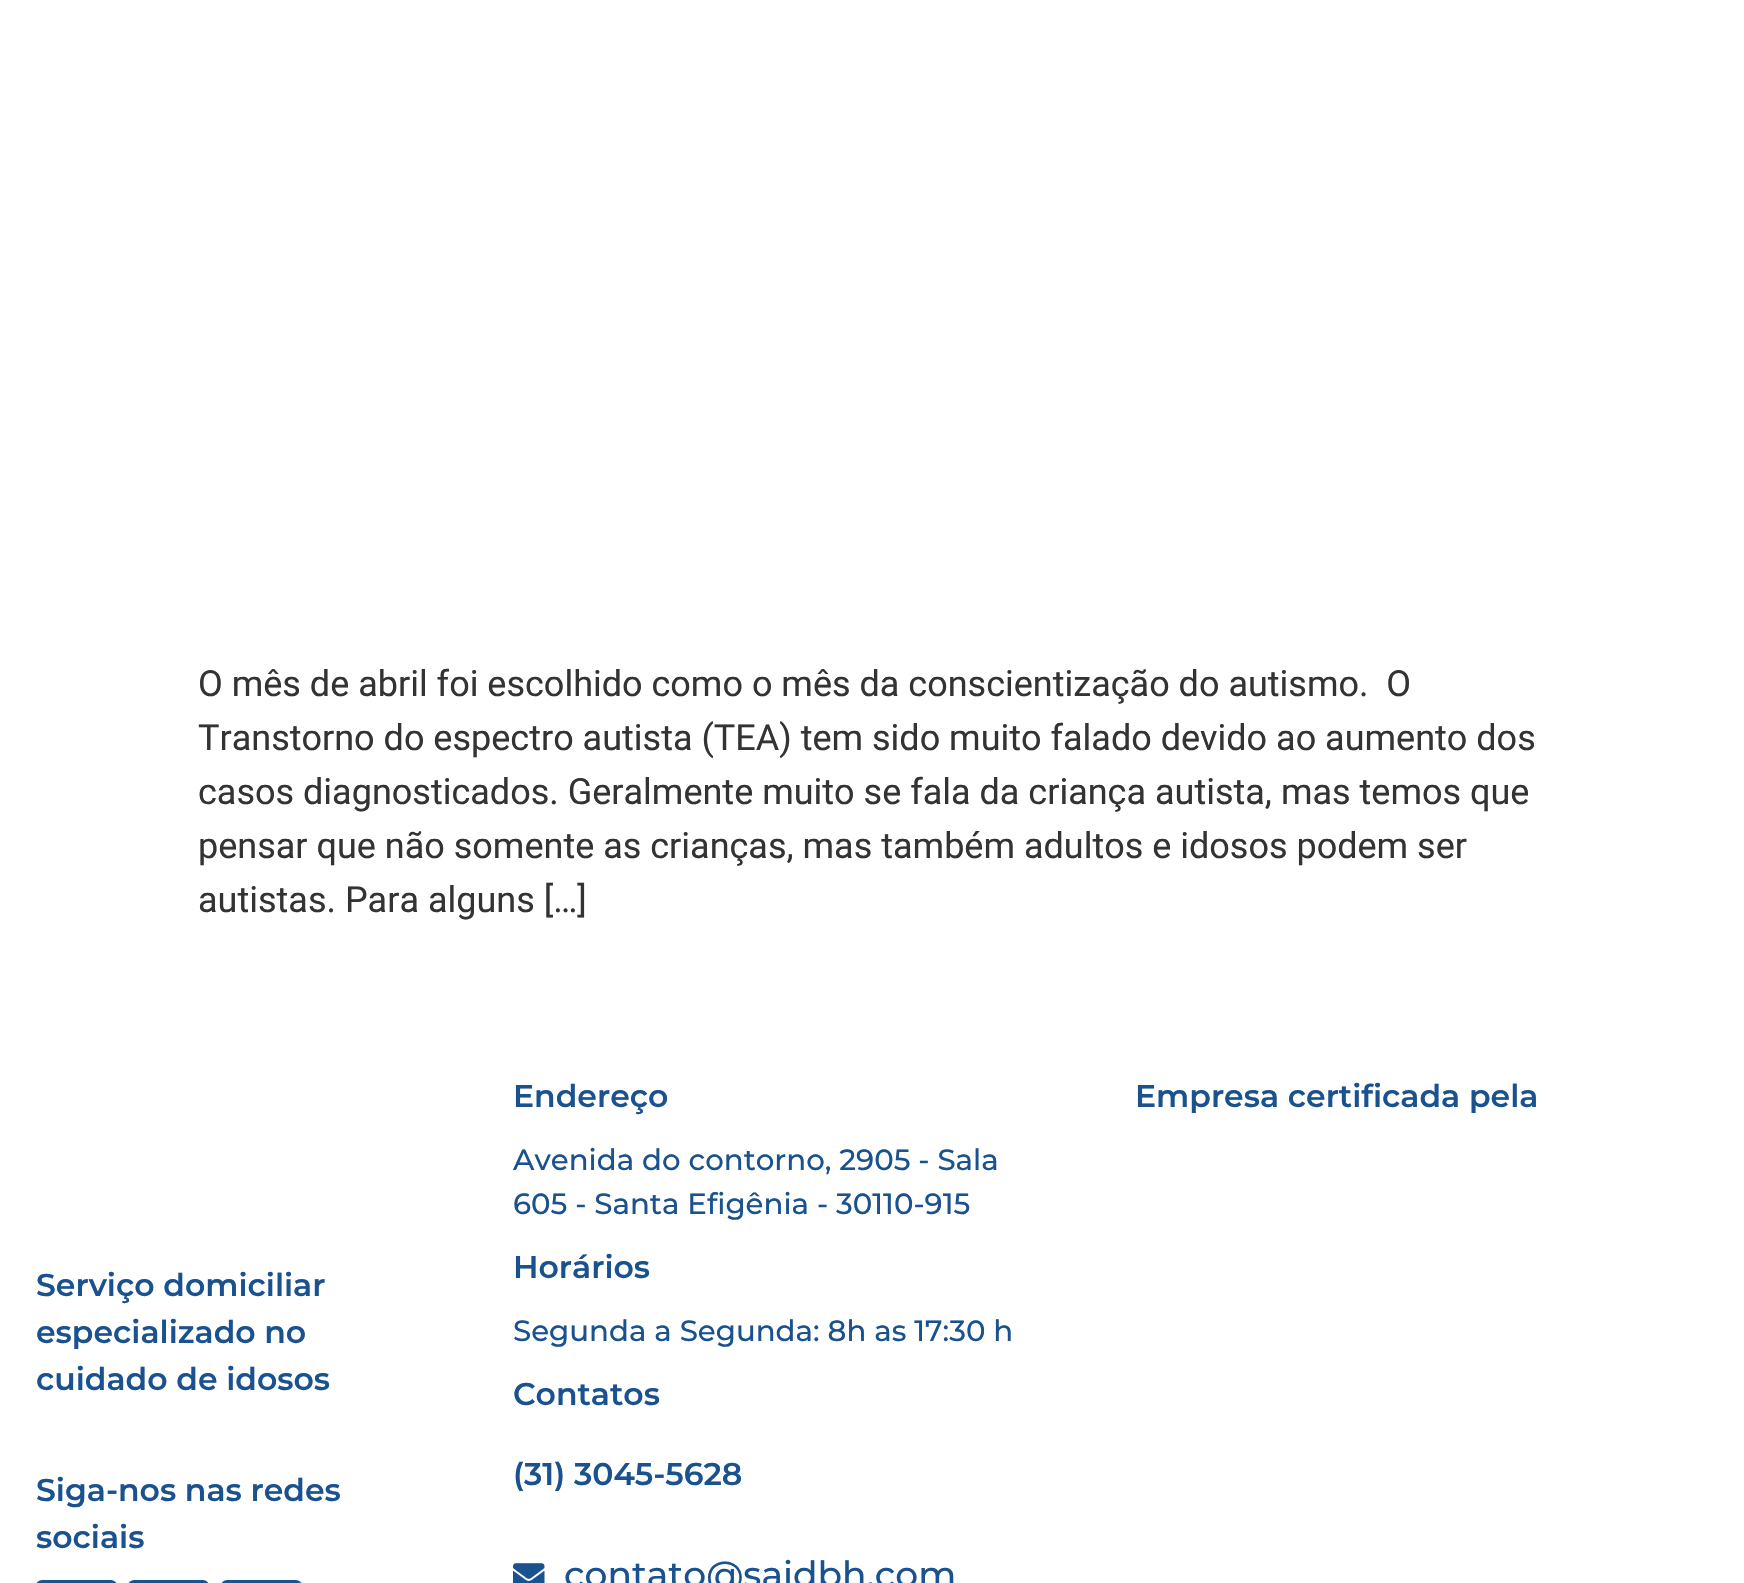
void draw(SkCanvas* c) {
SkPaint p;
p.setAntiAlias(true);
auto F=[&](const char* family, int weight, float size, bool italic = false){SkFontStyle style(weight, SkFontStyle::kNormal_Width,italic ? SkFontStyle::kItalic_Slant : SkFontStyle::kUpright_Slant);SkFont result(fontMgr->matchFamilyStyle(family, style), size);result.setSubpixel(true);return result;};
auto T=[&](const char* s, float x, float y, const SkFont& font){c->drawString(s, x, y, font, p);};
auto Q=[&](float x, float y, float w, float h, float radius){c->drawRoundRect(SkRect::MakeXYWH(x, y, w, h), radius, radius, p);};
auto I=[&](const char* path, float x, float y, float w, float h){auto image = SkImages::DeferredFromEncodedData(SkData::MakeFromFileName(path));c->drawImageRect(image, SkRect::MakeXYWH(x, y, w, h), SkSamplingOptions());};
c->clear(0xffffffff);
auto f1 = F("Roboto",400,36);
p.setColor(0xff333333);
T("O mês de abril foi escolhido como o mês da conscientização do autismo.  O",198,696,f1);
T("Transtorno do espectro autista (TEA) tem sido muito falado devido ao aumento dos",198,750,f1);
T("casos diagnosticados. Geralmente muito se fala da criança autista, mas temos que",198,804,f1);
T("pensar que não somente as crianças, mas também adultos e idosos podem ser",198,858,f1);
T("autistas. Para alguns […]",198,912,f1);
auto f2 = F("Montserrat",600,31.5);
p.setColor(0xff1a5290);
T("Serviço domiciliar",36,1296,f2);
T("especializado no",36,1343,f2);
T("cuidado de idosos",36,1390,f2);
T("Siga-nos nas redes",36,1501,f2);
T("sociais",36,1548,f2);
Q(36,1580,81,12,9);
Q(128,1580,81,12,9);
Q(221,1580,81,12,9);
T("Endereço",513,1107,f2);
auto f3 = F("Montserrat",500,29.25);
T("Avenida do contorno, 2905 - Sala",513,1170,f3);
T("605 - Santa Efigênia - 30110-915",513,1214,f3);
T("Horários",513,1278,f2);
T("Segunda a Segunda: 8h as 17:30 h",513,1341,f3);
T("Contatos",513,1405,f2);
T("(31) 3045-5628",513,1485,f2);
I("1.png",513,1563,32,20);
auto f4 = F("Montserrat",500,36);
T("contato@saidbh.com",564,1587,f4);
T("Empresa certificada pela",1135,1107,f2);
}
